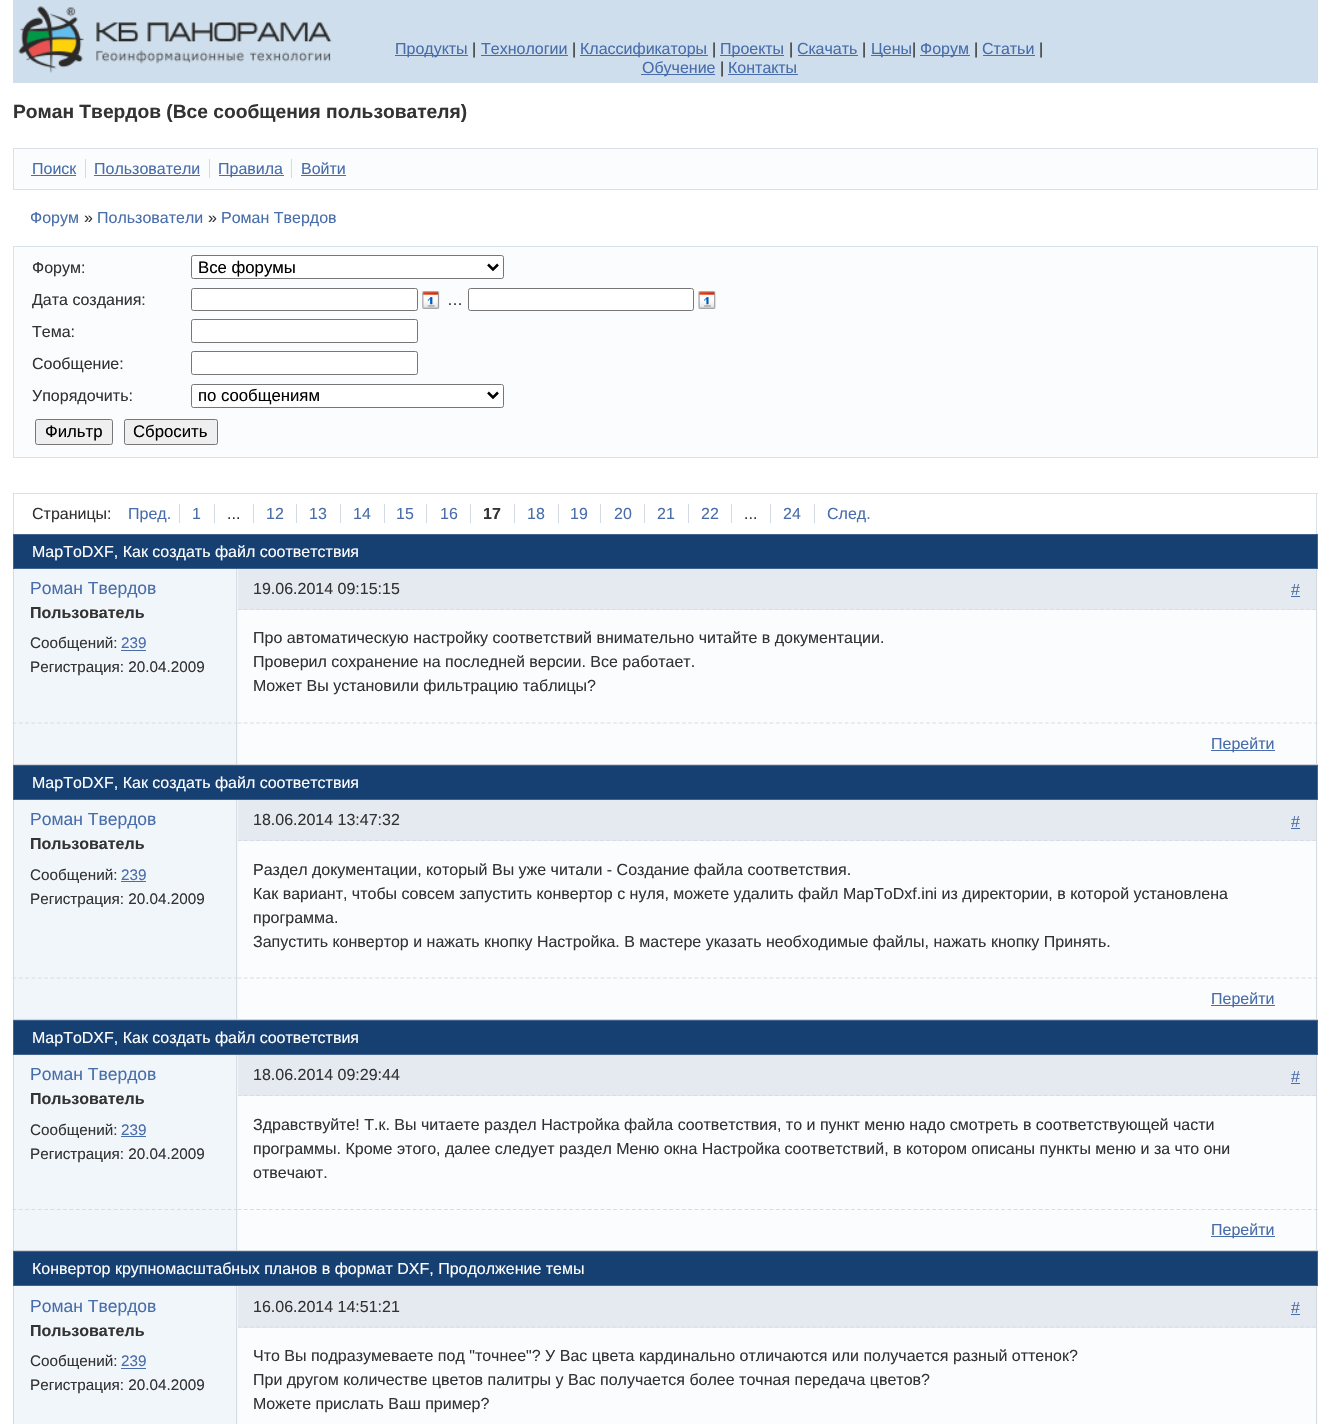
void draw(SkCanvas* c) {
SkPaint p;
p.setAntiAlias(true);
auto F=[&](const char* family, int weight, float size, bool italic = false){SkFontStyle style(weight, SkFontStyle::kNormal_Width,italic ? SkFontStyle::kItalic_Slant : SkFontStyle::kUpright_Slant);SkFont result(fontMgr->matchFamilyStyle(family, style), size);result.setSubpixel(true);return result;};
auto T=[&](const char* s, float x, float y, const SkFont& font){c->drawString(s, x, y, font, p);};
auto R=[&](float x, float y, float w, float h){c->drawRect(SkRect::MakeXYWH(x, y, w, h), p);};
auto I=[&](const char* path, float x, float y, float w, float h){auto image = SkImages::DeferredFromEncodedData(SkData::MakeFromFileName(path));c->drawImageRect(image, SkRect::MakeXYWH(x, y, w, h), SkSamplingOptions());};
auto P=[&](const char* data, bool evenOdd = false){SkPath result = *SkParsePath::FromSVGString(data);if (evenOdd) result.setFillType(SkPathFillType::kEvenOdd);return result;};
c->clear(0xffffffff);
p.setColor(0xffcedeec);
R(13,0,1305,83);
I("1.png",18,6,314,67);
p.setColor(0xff486daa);
R(395,55,73,1);
auto f1 = F("Liberation Sans",400,16);
T("Продукты",395,54,f1);
p.setColor(0xff333333);
T("|",472,54,f1);
p.setColor(0xff486daa);
T("Технологии",481,54,f1);
R(481,55,87,1);
p.setColor(0xff333333);
T("|",572,54,f1);
p.setColor(0xff486daa);
R(580,55,128,1);
T("Классификаторы",580,54,f1);
p.setColor(0xff333333);
T("|",712,54,f1);
p.setColor(0xff486daa);
R(720,55,64,1);
T("Проекты",720,54,f1);
p.setColor(0xff333333);
T("|",789,54,f1);
p.setColor(0xff486daa);
T("Скачать",797,54,f1);
R(798,55,60,1);
p.setColor(0xff333333);
T("|",862,54,f1);
p.setColor(0xff486daa);
R(871,55,40,1);
T("Цены",871,54,f1);
p.setColor(0xff333333);
T("|",912,54,f1);
p.setColor(0xff486daa);
R(920,55,50,1);
T("Форум",920,54,f1);
p.setColor(0xff333333);
T("|",974,54,f1);
p.setColor(0xff486daa);
T("Статьи",982,54,f1);
R(983,55,52,1);
p.setColor(0xff333333);
T("|",1039,54,f1);
p.setColor(0xff486daa);
R(641,74,74,1);
T("Обучение",642,73,f1);
p.setColor(0xff333333);
T("|",720,73,f1);
p.setColor(0xff486daa);
T("Контакты",728,73,f1);
R(728,74,70,1);
auto f2 = F("Liberation Sans",700,19.2);
p.setColor(0xff333333);
T("Роман Твердов (Все сообщения пользователя)",13,118,f2);
p.setColor(0xfffbfcfd);
c->drawRect(SkRect::MakeXYWH(13.5,148.5,1304,41),p);
p.setStroke(true);
p.setStrokeWidth(1);
p.setColor(0xffdae0e7);
c->drawRect(SkRect::MakeXYWH(13.5,148.5,1304,41),p);
p.setStroke(false);
p.setColor(0xff486daa);
T("Поиск",32,174,f1);
p.setColor(0xffd4dae3);
R(85,159,1,19);
p.setColor(0xff486daa);
R(31,175,45,1);
T("Пользователи",94,174,f1);
p.setColor(0xffd4dae3);
R(209,159,1,19);
p.setColor(0xff486daa);
R(94,175,106,1);
R(219,175,65,1);
T("Правила",218,174,f1);
p.setColor(0xffd4dae3);
R(291,159,1,19);
p.setColor(0xff486daa);
T("Войти",301,174,f1);
R(301,175,45,1);
T("Форум",30,223,f1);
p.setColor(0xff333333);
T("»",84,223,f1);
p.setColor(0xff486daa);
T("Пользователи",97,223,f1);
p.setColor(0xff333333);
T("»",208,223,f1);
p.setColor(0xff486daa);
T("Роман Твердов",221,223,f1);
p.setColor(0xfffbfcfd);
c->drawRect(SkRect::MakeXYWH(13.5,246.5,1304,211),p);
p.setStroke(true);
p.setColor(0xffdae0e7);
c->drawRect(SkRect::MakeXYWH(13.5,246.5,1304,211),p);
p.setStroke(false);
p.setColor(0xff333333);
T("Форум:",32,273,f1);
p.setColor(0xffffffff);
c->drawRoundRect(SkRect::MakeXYWH(191.5,255.5,312,23),2,2,p);
p.setStroke(true);
p.setColor(0xff767676);
c->drawRoundRect(SkRect::MakeXYWH(191.5,255.5,312,23),2,2,p);
p.setStrokeWidth(2.5);
p.setColor(0xff000000);
c->drawPath(P("M488 264.5l5 5l5-5"),p);
auto f3 = F("Liberation Sans",400,16.75);
p.setStroke(false);
T("Все форумы",198,273,f3);
p.setColor(0xff333333);
T("Дата создания:",32,305,f1);
p.setColor(0xffffffff);
c->drawRoundRect(SkRect::MakeXYWH(191.5,288.5,226,22),2,2,p);
p.setStroke(true);
p.setStrokeWidth(1);
p.setColor(0xff767676);
c->drawRoundRect(SkRect::MakeXYWH(191.5,288.5,226,22),2,2,p);
I("2.png",422,291,18,18);
p.setStroke(false);
p.setColor(0xff333333);
T("…",447,305,f1);
p.setColor(0xffffffff);
c->drawRoundRect(SkRect::MakeXYWH(468.5,288.5,225,22),2,2,p);
p.setStroke(true);
p.setColor(0xff767676);
c->drawRoundRect(SkRect::MakeXYWH(468.5,288.5,225,22),2,2,p);
I("3.png",698,291,18,18);
p.setStroke(false);
p.setColor(0xff333333);
T("Тема:",32,337,f1);
p.setColor(0xffffffff);
c->drawRoundRect(SkRect::MakeXYWH(191.5,319.5,226,23),2,2,p);
p.setStroke(true);
p.setColor(0xff767676);
c->drawRoundRect(SkRect::MakeXYWH(191.5,319.5,226,23),2,2,p);
p.setStroke(false);
p.setColor(0xff333333);
T("Сообщение:",32,369,f1);
p.setColor(0xffffffff);
c->drawRoundRect(SkRect::MakeXYWH(191.5,351.5,226,23),2,2,p);
p.setStroke(true);
p.setColor(0xff767676);
c->drawRoundRect(SkRect::MakeXYWH(191.5,351.5,226,23),2,2,p);
p.setStroke(false);
p.setColor(0xff333333);
T("Упорядочить:",32,401,f1);
p.setColor(0xffffffff);
c->drawRoundRect(SkRect::MakeXYWH(191.5,384.5,312,23),2,2,p);
p.setStroke(true);
p.setColor(0xff767676);
c->drawRoundRect(SkRect::MakeXYWH(191.5,384.5,312,23),2,2,p);
p.setStrokeWidth(2.5);
p.setColor(0xff000000);
c->drawPath(P("M488 392.5l5 5l5-5"),p);
p.setStroke(false);
T("по сообщениям",198,401,f3);
p.setColor(0xffefefef);
c->drawRoundRect(SkRect::MakeXYWH(35.5,419.5,77,25),2,2,p);
p.setStroke(true);
p.setStrokeWidth(1);
p.setColor(0xff767676);
c->drawRoundRect(SkRect::MakeXYWH(35.5,419.5,77,25),2,2,p);
p.setStroke(false);
p.setColor(0xff000000);
T("Фильтр",45,437,f3);
p.setColor(0xffefefef);
c->drawRoundRect(SkRect::MakeXYWH(124.5,419.5,93,25),2,2,p);
p.setStroke(true);
p.setColor(0xff767676);
c->drawRoundRect(SkRect::MakeXYWH(124.5,419.5,93,25),2,2,p);
p.setStroke(false);
p.setColor(0xff000000);
T("Сбросить",133,437,f3);
p.setColor(0xffdae0e7);
R(13,493,1305,1);
R(1316,493,1,41);
R(13,493,1,41);
p.setColor(0xff333333);
T("Страницы:",32,519,f1);
p.setColor(0xff486daa);
T("Пред.",128,519,f1);
p.setColor(0xffd4dae3);
R(179,504,1,19);
p.setColor(0xff486daa);
T("1",192,519,f1);
p.setColor(0xff333333);
T("...",227,519,f1);
p.setColor(0xffd4dae3);
R(214,504,1,19);
p.setColor(0xff486daa);
T("12",266,519,f1);
p.setColor(0xffd4dae3);
R(253,504,1,19);
p.setColor(0xff486daa);
T("13",309,519,f1);
p.setColor(0xffd4dae3);
R(296,504,1,19);
p.setColor(0xff486daa);
T("14",353,519,f1);
p.setColor(0xffd4dae3);
R(340,504,1,19);
p.setColor(0xff486daa);
T("15",396,519,f1);
p.setColor(0xffd4dae3);
R(384,504,1,19);
p.setColor(0xff486daa);
T("16",440,519,f1);
p.setColor(0xffd4dae3);
R(426,504,1,19);
auto f4 = F("Liberation Sans",700,16);
p.setColor(0xff333333);
T("17",483,519,f4);
p.setColor(0xffd4dae3);
R(470,504,1,19);
p.setColor(0xff486daa);
T("18",527,519,f1);
p.setColor(0xffd4dae3);
R(514,504,1,19);
p.setColor(0xff486daa);
T("19",570,519,f1);
p.setColor(0xffd4dae3);
R(558,504,1,19);
p.setColor(0xff486daa);
T("20",614,519,f1);
p.setColor(0xffd4dae3);
R(600,504,1,19);
p.setColor(0xff486daa);
T("21",657,519,f1);
p.setColor(0xffd4dae3);
R(644,504,1,19);
p.setColor(0xff486daa);
T("22",701,519,f1);
p.setColor(0xffd4dae3);
R(688,504,1,19);
p.setColor(0xff333333);
T("...",744,519,f1);
p.setColor(0xffd4dae3);
R(731,504,1,19);
p.setColor(0xff486daa);
T("24",783,519,f1);
p.setColor(0xffd4dae3);
R(770,504,1,19);
p.setColor(0xff486daa);
T("След.",827,519,f1);
p.setColor(0xffd4dae3);
R(814,504,1,19);
p.setColor(0xff163f72);
c->drawRect(SkRect::MakeXYWH(13.5,534.5,1304,34),p);
p.setStroke(true);
p.setColor(0xff406390);
c->drawRect(SkRect::MakeXYWH(13.5,534.5,1304,34),p);
p.setStroke(false);
p.setColor(0xffffffff);
T("MapToDXF, Как создать файл соответствия",32,557,f1);
p.setColor(0xffd0d3d8);
R(13,764,1305,1);
p.setColor(0xfffbfcfd);
R(238,569,1080,195);
p.setColor(0xffe5eaf0);
R(238,569,1078,41);
p.setStroke(true);
p.setStrokeWidth(1.2);
p.setColor(0xffd6dde5);
p.setPathEffect(SkDashPathEffect::Make({{3.75f,2.5f}}, 0));
c->drawPath(P("M237.5 609.5h1078.5"),p);
p.setPathEffect(nullptr);
p.setStroke(false);
p.setColor(0xffd5dae0);
R(1316,569,1,154);
p.setStroke(true);
p.setColor(0xffd6dde5);
p.setPathEffect(SkDashPathEffect::Make({{3.75f,2.51f}}, 0));
c->drawPath(P("M237.5 723h1080"),p);
p.setPathEffect(nullptr);
p.setStroke(false);
p.setColor(0xfff1f6fa);
R(14,569,224,195);
p.setColor(0xffd6dde5);
R(236,569,1,154);
p.setColor(0xffd5dae0);
R(13,569,1,154);
auto f5 = F("Liberation Sans",400,17.5);
p.setColor(0xff486daa);
T("Роман Твердов",30,594,f5);
p.setColor(0xff333333);
T("Пользователь",30,618,f4);
auto f6 = F("Liberation Sans",400,15.25);
T("Сообщений:",30,648,f6);
p.setColor(0xff486daa);
T("239",121,648,f6);
R(121,650,25,1);
p.setColor(0xff333333);
T("Регистрация: 20.04.2009",30,672,f6);
T("19.06.2014 09:15:15",253,594,f1);
p.setColor(0xff486daa);
T("#",1291,595,f1);
R(1291,596,9,1);
p.setColor(0xff333333);
T("Про автоматическую настройку соответствий внимательно читайте в документации.",253,643,f1);
T("Проверил сохранение на последней версии. Все работает.",253,667,f1);
T("Может Вы установили фильтрацию таблицы?",253,691,f1);
p.setStroke(true);
p.setColor(0xffd6dde5);
p.setPathEffect(SkDashPathEffect::Make({{3.75f,2.58f}}, 0));
c->drawPath(P("M12.5 723h225"),p);
p.setPathEffect(nullptr);
p.setStroke(false);
R(236,723,1,41);
p.setColor(0xffd5dae0);
R(13,723,1,41);
R(1316,723,1,41);
p.setColor(0xff486daa);
R(1211,750,64,1);
T("Перейти",1211,749,f1);
p.setColor(0xff163f72);
c->drawRect(SkRect::MakeXYWH(13.5,765.5,1304,34),p);
p.setStroke(true);
p.setStrokeWidth(1);
p.setColor(0xff406390);
c->drawRect(SkRect::MakeXYWH(13.5,765.5,1304,34),p);
p.setStroke(false);
p.setColor(0xffffffff);
T("MapToDXF, Как создать файл соответствия",32,788,f1);
p.setColor(0xffd0d3d8);
R(13,1019,1305,1);
p.setColor(0xfffbfcfd);
R(238,800,1080,219);
p.setColor(0xffe5eaf0);
R(238,800,1078,41);
p.setStroke(true);
p.setStrokeWidth(1.2);
p.setColor(0xffd6dde5);
p.setPathEffect(SkDashPathEffect::Make({{3.75f,2.5f}}, 0));
c->drawPath(P("M237.5 840.5h1078.5"),p);
p.setPathEffect(nullptr);
p.setStroke(false);
p.setColor(0xffd5dae0);
R(1316,800,1,178);
p.setStroke(true);
p.setColor(0xffd6dde5);
p.setPathEffect(SkDashPathEffect::Make({{3.75f,2.51f}}, 0));
c->drawPath(P("M237.5 978h1080"),p);
p.setPathEffect(nullptr);
p.setStroke(false);
p.setColor(0xfff1f6fa);
R(14,800,224,219);
p.setColor(0xffd6dde5);
R(236,800,1,178);
p.setColor(0xffd5dae0);
R(13,800,1,178);
p.setColor(0xff486daa);
T("Роман Твердов",30,825,f5);
p.setColor(0xff333333);
T("Пользователь",30,849,f4);
T("Сообщений:",30,880,f6);
p.setColor(0xff486daa);
T("239",121,880,f6);
R(121,881,25,1);
p.setColor(0xff333333);
T("Регистрация: 20.04.2009",30,904,f6);
T("18.06.2014 13:47:32",253,825,f1);
p.setColor(0xff486daa);
T("#",1291,827,f1);
R(1291,828,9,1);
p.setColor(0xff333333);
T("Раздел документации, который Вы уже читали - Создание файла соответствия.",253,875,f1);
T("Как вариант, чтобы совсем запустить конвертор с нуля, можете удалить файл MapToDxf.ini из директории, в которой установлена",253,899,f1);
T("программа.",253,923,f1);
T("Запустить конвертор и нажать кнопку Настройка. В мастере указать необходимые файлы, нажать кнопку Принять.",253,947,f1);
p.setStroke(true);
p.setColor(0xffd6dde5);
p.setPathEffect(SkDashPathEffect::Make({{3.75f,2.58f}}, 0));
c->drawPath(P("M12.5 978h225"),p);
p.setPathEffect(nullptr);
p.setStroke(false);
R(236,978,1,41);
p.setColor(0xffd5dae0);
R(13,978,1,41);
R(1316,978,1,41);
p.setColor(0xff486daa);
R(1211,1005,64,1);
T("Перейти",1211,1004,f1);
p.setColor(0xff163f72);
c->drawRect(SkRect::MakeXYWH(13.5,1020.5,1304,34),p);
p.setStroke(true);
p.setStrokeWidth(1);
p.setColor(0xff406390);
c->drawRect(SkRect::MakeXYWH(13.5,1020.5,1304,34),p);
p.setStroke(false);
p.setColor(0xffffffff);
T("MapToDXF, Как создать файл соответствия",32,1043,f1);
p.setColor(0xffd0d3d8);
R(13,1250,1305,1);
p.setColor(0xfffbfcfd);
R(238,1055,1080,195);
p.setColor(0xffe5eaf0);
R(238,1055,1078,41);
p.setStroke(true);
p.setStrokeWidth(1.2);
p.setColor(0xffd6dde5);
p.setPathEffect(SkDashPathEffect::Make({{3.75f,2.5f}}, 0));
c->drawPath(P("M237.5 1095.5h1078.5"),p);
p.setPathEffect(nullptr);
p.setStroke(false);
p.setColor(0xffd5dae0);
R(1316,1055,1,154);
p.setStroke(true);
p.setColor(0xffd6dde5);
p.setPathEffect(SkDashPathEffect::Make({{3.75f,2.51f}}, 0));
c->drawPath(P("M237.5 1209.5h1080"),p);
p.setPathEffect(nullptr);
p.setStroke(false);
p.setColor(0xfff1f6fa);
R(14,1055,224,195);
p.setColor(0xffd6dde5);
R(236,1055,1,154);
p.setColor(0xffd5dae0);
R(13,1055,1,154);
p.setColor(0xff486daa);
T("Роман Твердов",30,1080,f5);
p.setColor(0xff333333);
T("Пользователь",30,1104,f4);
T("Сообщений:",30,1135,f6);
p.setColor(0xff486daa);
T("239",121,1135,f6);
R(121,1136,25,1);
p.setColor(0xff333333);
T("Регистрация: 20.04.2009",30,1159,f6);
T("18.06.2014 09:29:44",253,1080,f1);
p.setColor(0xff486daa);
T("#",1291,1082,f1);
R(1291,1083,9,1);
p.setColor(0xff333333);
T("Здравствуйте! Т.к. Вы читаете раздел Настройка файла соответствия, то и пункт меню надо смотреть в соответствующей части",253,1130,f1);
T("программы. Кроме этого, далее следует раздел Меню окна Настройка соответствий, в котором описаны пункты меню и за что они",253,1154,f1);
T("отвечают.",253,1178,f1);
p.setStroke(true);
p.setColor(0xffd6dde5);
p.setPathEffect(SkDashPathEffect::Make({{3.75f,2.58f}}, 0));
c->drawPath(P("M12.5 1209.5h225"),p);
p.setPathEffect(nullptr);
p.setStroke(false);
R(236,1209,1,41);
p.setColor(0xffd5dae0);
R(13,1209,1,41);
R(1316,1209,1,41);
p.setColor(0xff486daa);
R(1211,1236,64,1);
T("Перейти",1211,1235,f1);
p.setColor(0xff163f72);
c->drawRect(SkRect::MakeXYWH(13.5,1251.5,1304,34),p);
p.setStroke(true);
p.setStrokeWidth(1);
p.setColor(0xff406390);
c->drawRect(SkRect::MakeXYWH(13.5,1251.5,1304,34),p);
p.setStroke(false);
p.setColor(0xffffffff);
T("Конвертор крупномасштабных планов в формат DXF, Продолжение темы",32,1274,f1);
p.setColor(0xfffbfcfd);
R(238,1286,1080,138);
p.setColor(0xffe5eaf0);
R(238,1286,1078,42);
p.setStroke(true);
p.setStrokeWidth(1.2);
p.setColor(0xffd6dde5);
p.setPathEffect(SkDashPathEffect::Make({{3.75f,2.5f}}, 0));
c->drawPath(P("M237.5 1327h1078.5"),p);
p.setPathEffect(nullptr);
p.setStroke(false);
p.setColor(0xfff1f6fa);
R(14,1286,224,138);
p.setColor(0xffd6dde5);
R(236,1286,1,138);
p.setColor(0xffd5dae0);
R(13,1286,1,138);
p.setColor(0xff486daa);
T("Роман Твердов",30,1312,f5);
p.setColor(0xff333333);
T("Пользователь",30,1336,f4);
T("Сообщений:",30,1366,f6);
p.setColor(0xff486daa);
T("239",121,1366,f6);
R(121,1368,25,1);
p.setColor(0xff333333);
T("Регистрация: 20.04.2009",30,1390,f6);
p.setColor(0xffd5dae0);
R(1316,1286,1,138);
p.setColor(0xff333333);
T("16.06.2014 14:51:21",253,1312,f1);
p.setColor(0xff486daa);
T("#",1291,1313,f1);
R(1291,1314,9,1);
p.setColor(0xff333333);
T("Что Вы подразумеваете под \"точнее\"? У Вас цвета кардинально отличаются или получается разный оттенок?",253,1361,f1);
T("При другом количестве цветов палитры у Вас получается более точная передача цветов?",253,1385,f1);
T("Можете прислать Ваш пример?",253,1409,f1);
}
